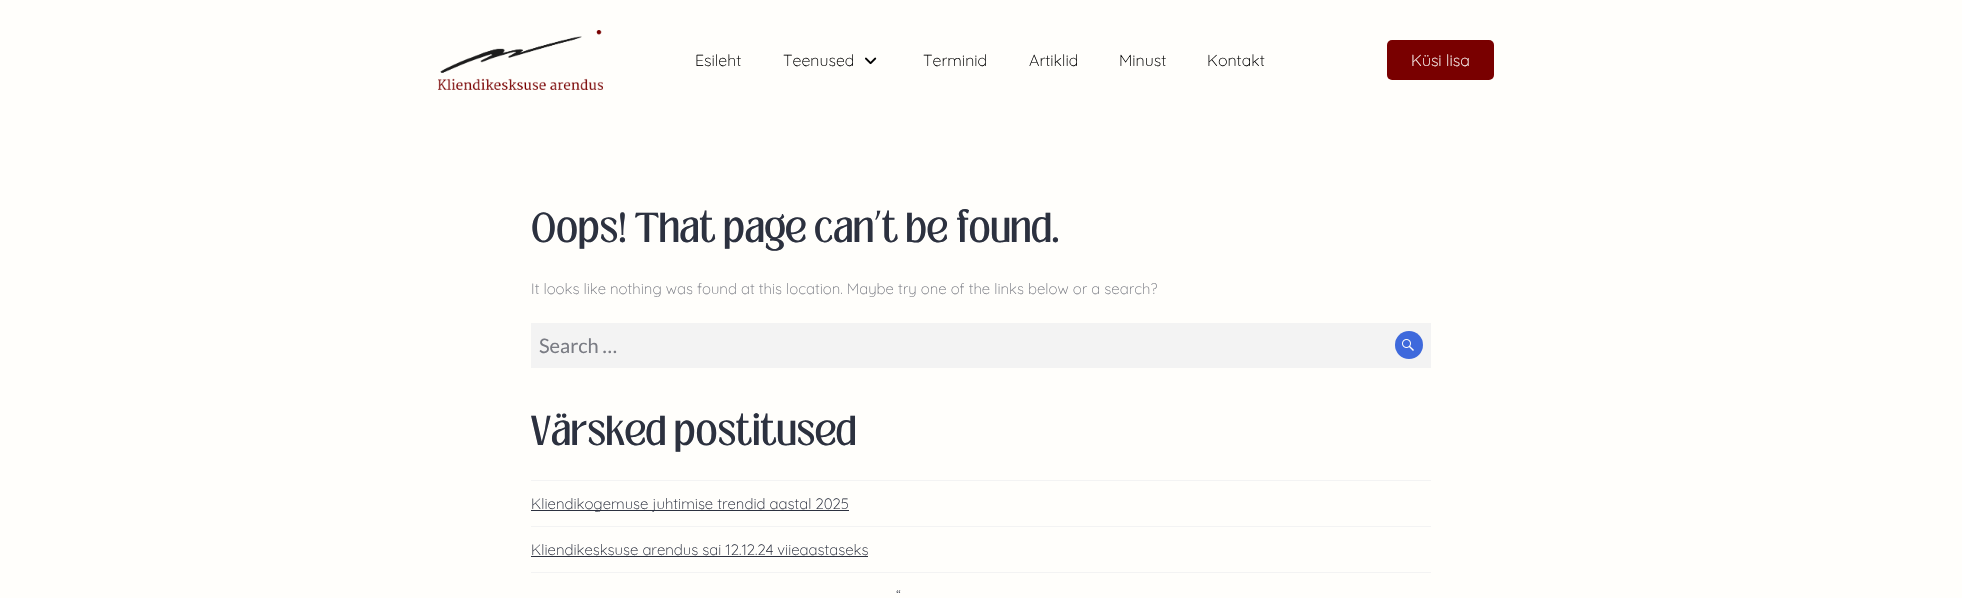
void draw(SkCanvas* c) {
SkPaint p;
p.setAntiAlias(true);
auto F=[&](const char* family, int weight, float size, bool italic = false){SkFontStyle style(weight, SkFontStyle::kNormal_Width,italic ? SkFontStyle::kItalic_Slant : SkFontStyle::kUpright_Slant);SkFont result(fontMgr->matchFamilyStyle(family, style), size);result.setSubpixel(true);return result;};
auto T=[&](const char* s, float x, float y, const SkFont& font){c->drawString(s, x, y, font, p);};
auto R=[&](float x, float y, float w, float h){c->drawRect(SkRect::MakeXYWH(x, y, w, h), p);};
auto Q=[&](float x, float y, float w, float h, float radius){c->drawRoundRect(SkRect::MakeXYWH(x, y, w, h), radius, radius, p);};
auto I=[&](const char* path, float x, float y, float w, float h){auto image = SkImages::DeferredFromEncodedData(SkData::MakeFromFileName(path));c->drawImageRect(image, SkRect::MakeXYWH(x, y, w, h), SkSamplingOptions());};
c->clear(0xfffffefb);
I("1.png",438,30,165,60);
auto f1 = F("Quicksand",300,16);
p.setColor(0xff000000);
T("Esileht",695,66,f1);
T("Teenused",783,66,f1);
I("2.png",865,57,12,8);
T("Terminid",923,66,f1);
T("Artiklid",1029,66,f1);
T("Minust",1119,66,f1);
T("Kontakt",1207,66,f1);
p.setColor(0xff790000);
Q(1387,40,107,40,5);
p.setColor(0xfffffefb);
T("Küsi lisa",1411,66,f1);
auto f2 = F("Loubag",400,32);
p.setColor(0xff2c313f);
T("Oops! That page can’t be found.",531,242,f2);
auto f3 = F("Quicksand",300,15);
p.setColor(0xff7a7c84);
T("It looks like nothing was found at this location. Maybe try one of the links below or a search?",531,294,f3);
p.setColor(0xfff3f3f3);
R(531,323,900,45);
auto f4 = F("Lato",400,20);
p.setColor(0xff7a7c84);
T("Search …",539,353,f4);
p.setColor(0xff3e69dc);
c->drawCircle(1409,345,14,p);
I("3.png",1402,339,12,12);
p.setColor(0xff2c313f);
T("Värsked postitused",531,445,f2);
p.setColor(0xfff3f3f3);
R(531,480,900,1);
p.setColor(0xff2c313f);
R(531,510,318,1);
T("Kliendikogemuse juhtimise trendid aastal 2025",531,509,f3);
p.setColor(0xfff3f3f3);
R(531,526,900,1);
p.setColor(0xff2c313f);
T("Kliendikesksuse arendus sai 12.12.24 viieaastaseks",531,555,f3);
R(531,556,337,1);
p.setColor(0xfff3f3f3);
R(531,572,900,1);
p.setColor(0xff2c313f);
T("“",896,601,f3);
}
